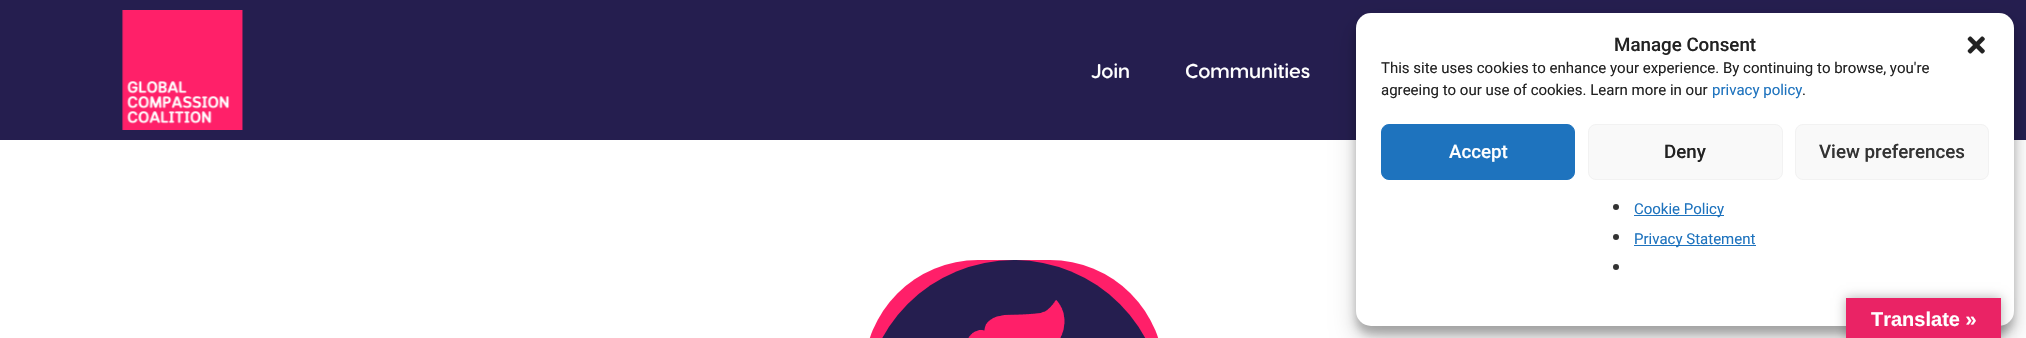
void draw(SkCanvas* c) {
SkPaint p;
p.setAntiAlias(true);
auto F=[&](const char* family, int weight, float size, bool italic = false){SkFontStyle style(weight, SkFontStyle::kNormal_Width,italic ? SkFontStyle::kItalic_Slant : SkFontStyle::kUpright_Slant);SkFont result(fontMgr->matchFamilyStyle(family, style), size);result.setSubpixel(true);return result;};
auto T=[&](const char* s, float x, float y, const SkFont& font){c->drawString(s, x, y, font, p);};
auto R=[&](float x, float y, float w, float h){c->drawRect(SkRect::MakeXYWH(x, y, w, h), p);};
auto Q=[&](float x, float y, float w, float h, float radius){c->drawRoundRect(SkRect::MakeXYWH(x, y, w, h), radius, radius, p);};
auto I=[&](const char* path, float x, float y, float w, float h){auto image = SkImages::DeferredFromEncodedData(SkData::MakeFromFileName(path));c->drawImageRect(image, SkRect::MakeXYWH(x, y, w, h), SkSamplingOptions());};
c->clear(0xffffffff);
p.setColor(0xff251e4f);
R(0,0,2026,140);
I("1.png",122,10,121,120);
auto f1 = F("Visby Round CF",600,20);
p.setColor(0xffffffff);
T("Join",1091,78,f1);
T("Communities",1185,78,f1);
p.setColor(0xffff1f69);
Q(864,260,300,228,150);
I("2.png",882,260,264,78);
p.setColor(0x3b000000);
p.setMaskFilter(SkMaskFilter::MakeBlur(kNormal_SkBlurStyle, 4));
c->drawRoundRect(SkRect::MakeXYWH(1356,20,658,314),15,15,p);
p.setMaskFilter(nullptr);
p.setColor(0x30000000);
p.setMaskFilter(SkMaskFilter::MakeBlur(kNormal_SkBlurStyle, 12.5));
c->drawRoundRect(SkRect::MakeXYWH(1356,25,658,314),15,15,p);
p.setMaskFilter(nullptr);
p.setColor(0xffffffff);
Q(1356,13,658,313,15);
auto f2 = F("Roboto",500,18.75);
p.setColor(0xff222222);
T("Manage Consent",1614,51,f2);
I("3.png",1967,36,18,18);
auto f3 = F("Roboto",400,15);
T("This site uses cookies to enhance your experience. By continuing to browse, you're",1381,73,f3);
T("agreeing to our use of cookies. Learn more in our",1381,95,f3);
p.setColor(0xff1e73be);
T("privacy policy",1712,95,f3);
p.setColor(0xff222222);
T(".",1802,95,f3);
p.setColor(0xff1e73be);
c->drawRoundRect(SkRect::MakeXYWH(1381.5,124.5,193,55),7.5,7.5,p);
p.setStroke(true);
p.setStrokeWidth(1);
c->drawRoundRect(SkRect::MakeXYWH(1381.5,124.5,193,55),7.5,7.5,p);
p.setStroke(false);
p.setColor(0xffffffff);
T("Accept",1449,158,f2);
p.setColor(0xfff9f9f9);
c->drawRoundRect(SkRect::MakeXYWH(1588.5,124.5,194,55),7.5,7.5,p);
p.setStroke(true);
p.setColor(0xfff2f2f2);
c->drawRoundRect(SkRect::MakeXYWH(1588.5,124.5,194,55),7.5,7.5,p);
p.setStroke(false);
p.setColor(0xff222222);
T("Deny",1664,158,f2);
p.setColor(0xfff9f9f9);
c->drawRoundRect(SkRect::MakeXYWH(1795.5,124.5,193,55),7.5,7.5,p);
p.setStroke(true);
p.setColor(0xfff2f2f2);
c->drawRoundRect(SkRect::MakeXYWH(1795.5,124.5,193,55),7.5,7.5,p);
p.setStroke(false);
p.setColor(0xff333333);
T("View preferences",1819,158,f2);
c->drawCircle(1616,207,3,p);
p.setColor(0xff1e73be);
R(1634,215,90,1);
T("Cookie Policy",1634,214,f3);
p.setColor(0xff333333);
c->drawCircle(1616,237,3,p);
p.setColor(0xff1e73be);
R(1634,245,122,1);
T("Privacy Statement",1634,244,f3);
p.setColor(0xff333333);
c->drawCircle(1616,267,3,p);
p.setColor(0x4d000000);
p.setMaskFilter(SkMaskFilter::MakeBlur(kNormal_SkBlurStyle, 5.5));
c->drawRect(SkRect::MakeXYWH(1846,298,155,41),p);
p.setMaskFilter(nullptr);
p.setColor(0xffea2365);
R(1846,298,155,40);
auto f4 = F("Liberation Sans",700,20);
p.setColor(0xffffffff);
T("Translate »",1871,326,f4);
}
